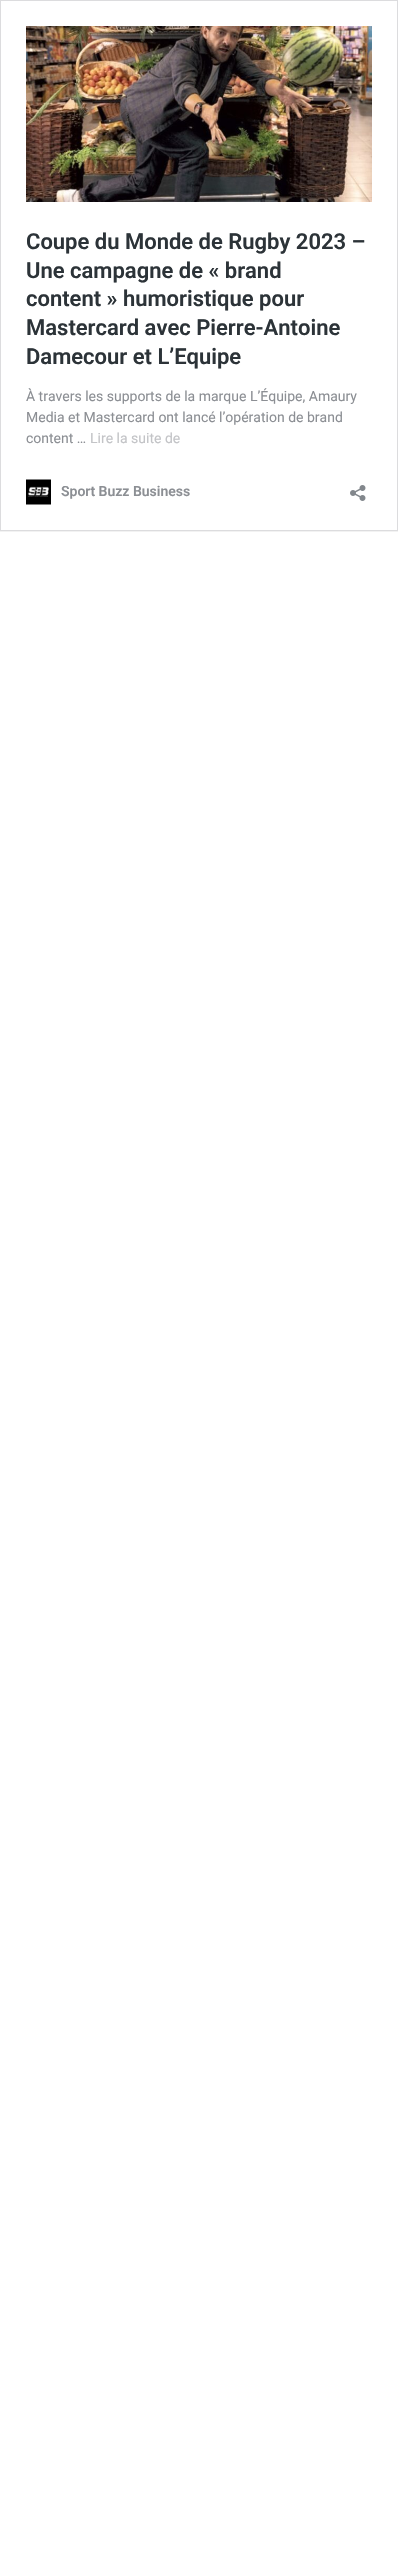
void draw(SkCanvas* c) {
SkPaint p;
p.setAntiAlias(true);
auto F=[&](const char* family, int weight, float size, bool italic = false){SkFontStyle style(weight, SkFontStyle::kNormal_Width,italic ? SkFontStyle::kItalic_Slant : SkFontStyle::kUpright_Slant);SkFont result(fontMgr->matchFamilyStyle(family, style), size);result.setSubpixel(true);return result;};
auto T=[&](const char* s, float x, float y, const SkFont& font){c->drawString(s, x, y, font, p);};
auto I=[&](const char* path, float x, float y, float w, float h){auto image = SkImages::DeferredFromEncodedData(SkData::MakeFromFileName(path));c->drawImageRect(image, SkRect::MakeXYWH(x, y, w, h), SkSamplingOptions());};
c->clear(0xffffffff);
c->save();
c->clipRect(SkRect::MakeXYWH(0,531,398,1));
p.setColor(0x0d000000);
p.setMaskFilter(SkMaskFilter::MakeBlur(kNormal_SkBlurStyle, .5));
c->drawRect(SkRect::MakeXYWH(0,1,398,531),p);
p.setMaskFilter(nullptr);
c->restore();
p.setStroke(true);
p.setStrokeWidth(1);
p.setColor(0xffdcdcde);
c->drawRect(SkRect::MakeXYWH(.5,.5,397,530),p);
I("1.png",26,26,346,176);
auto f1 = F("Roboto",600,22);
p.setStroke(false);
p.setColor(0xff2c3338);
T("Coupe du Monde de Rugby 2023 –",26,249,f1);
T("Une campagne de « brand",26,278,f1);
T("content » humoristique pour",26,306,f1);
T("Mastercard avec Pierre-Antoine",26,335,f1);
T("Damecour et L’Equipe",26,364,f1);
auto f2 = F("Roboto",400,14);
p.setColor(0xff8c8f94);
T("À travers les supports de la marque L’Équipe, Amaury",26,401,f2);
T("Media et Mastercard ont lancé l’opération de brand",26,422,f2);
T("content …",26,443,f2);
p.setColor(0xffc3c4c7);
T("Lire la suite de",90,443,f2);
I("2.png",26,479,25,26);
auto f3 = F("Roboto",600,14);
p.setColor(0xff8c8f94);
T("Sport Buzz Business",61,496,f3);
I("3.png",350,485,16,16);
}
